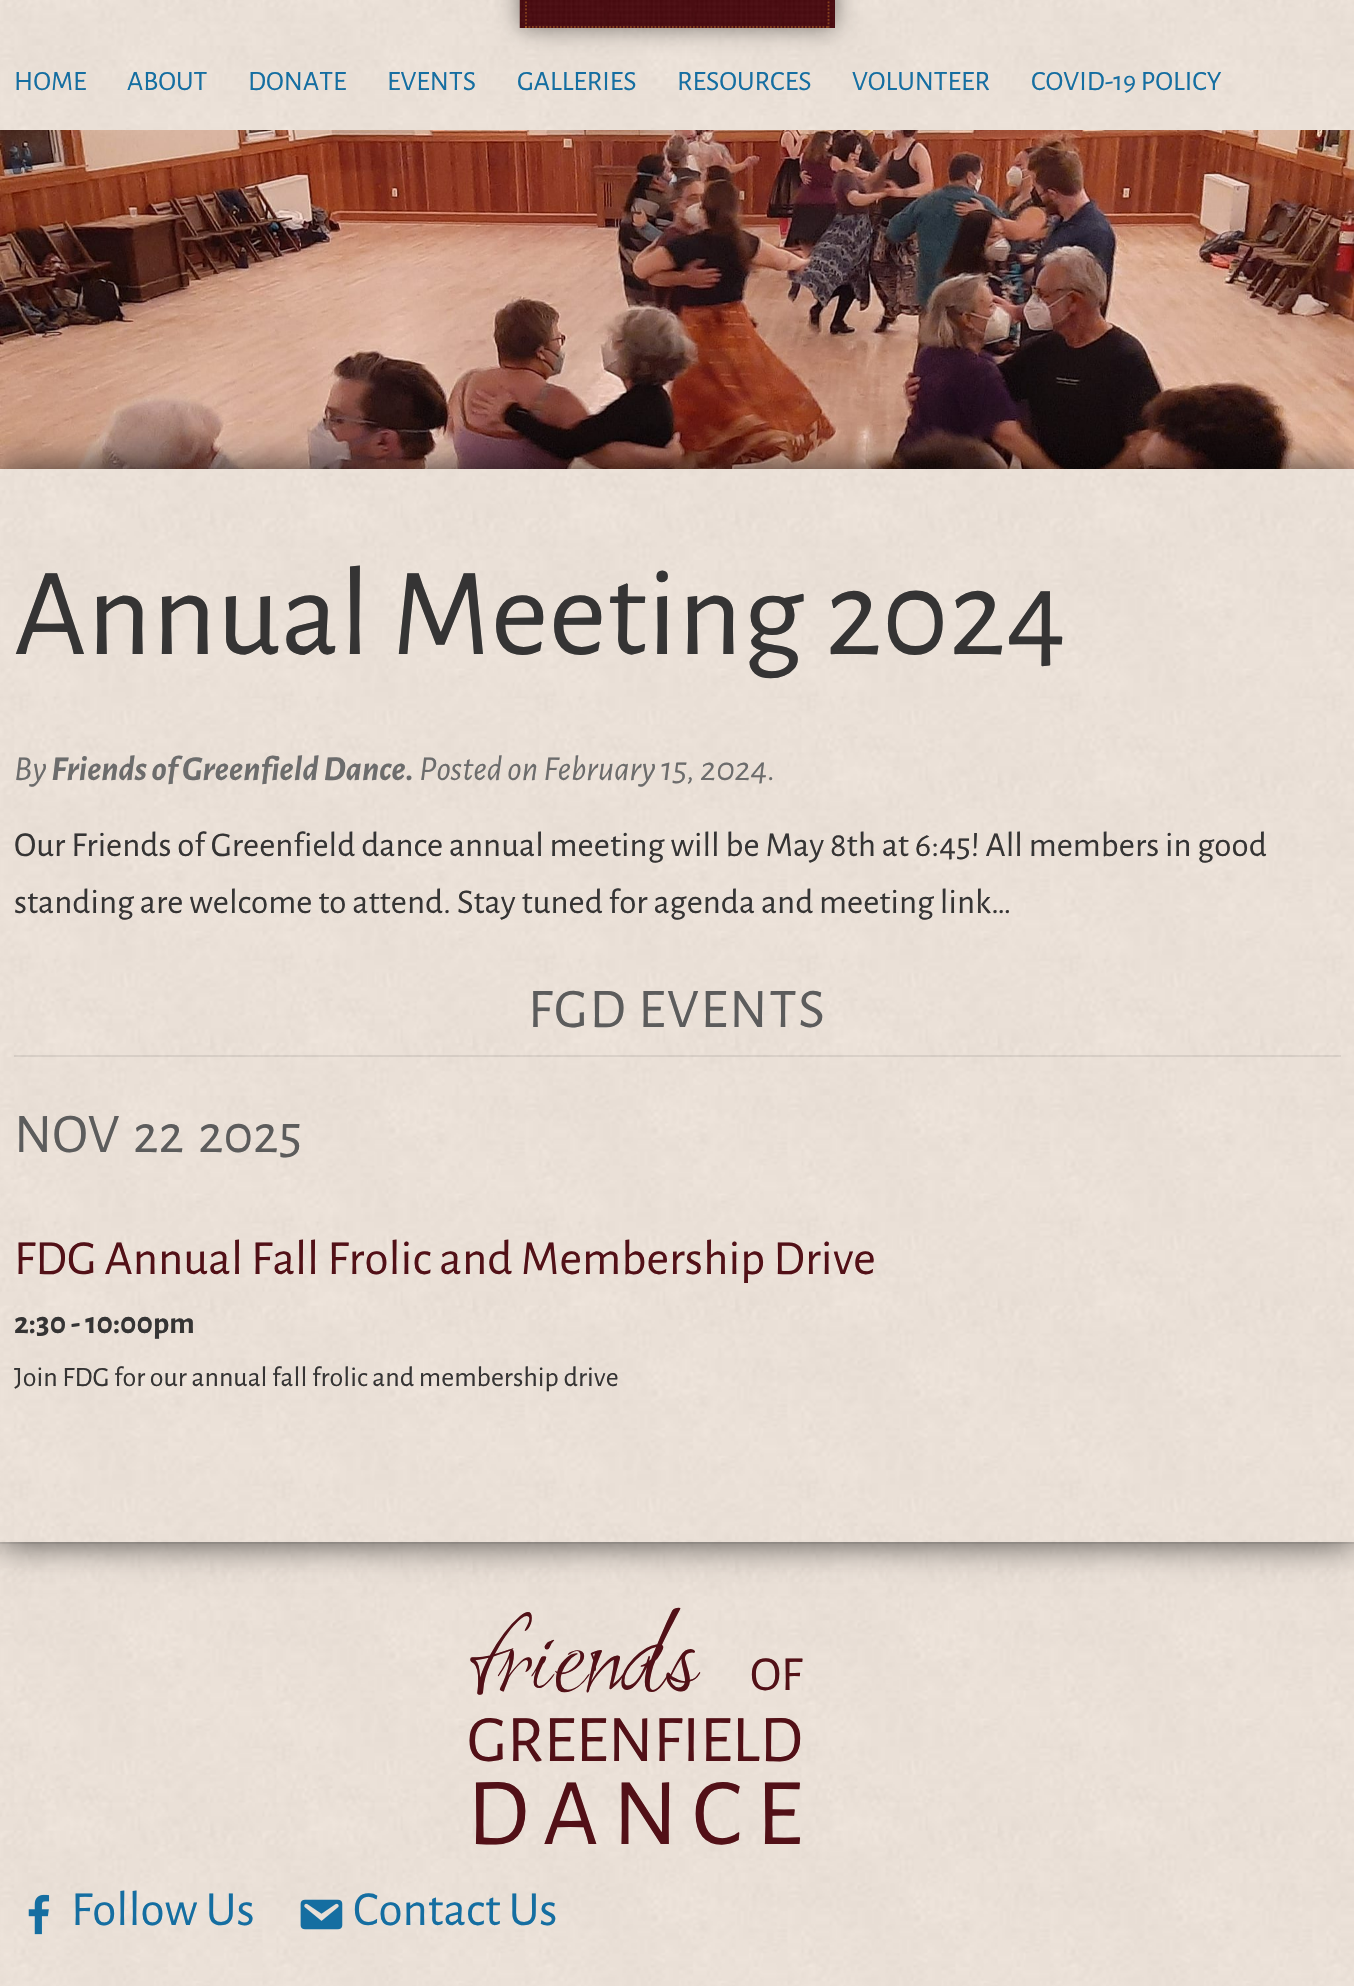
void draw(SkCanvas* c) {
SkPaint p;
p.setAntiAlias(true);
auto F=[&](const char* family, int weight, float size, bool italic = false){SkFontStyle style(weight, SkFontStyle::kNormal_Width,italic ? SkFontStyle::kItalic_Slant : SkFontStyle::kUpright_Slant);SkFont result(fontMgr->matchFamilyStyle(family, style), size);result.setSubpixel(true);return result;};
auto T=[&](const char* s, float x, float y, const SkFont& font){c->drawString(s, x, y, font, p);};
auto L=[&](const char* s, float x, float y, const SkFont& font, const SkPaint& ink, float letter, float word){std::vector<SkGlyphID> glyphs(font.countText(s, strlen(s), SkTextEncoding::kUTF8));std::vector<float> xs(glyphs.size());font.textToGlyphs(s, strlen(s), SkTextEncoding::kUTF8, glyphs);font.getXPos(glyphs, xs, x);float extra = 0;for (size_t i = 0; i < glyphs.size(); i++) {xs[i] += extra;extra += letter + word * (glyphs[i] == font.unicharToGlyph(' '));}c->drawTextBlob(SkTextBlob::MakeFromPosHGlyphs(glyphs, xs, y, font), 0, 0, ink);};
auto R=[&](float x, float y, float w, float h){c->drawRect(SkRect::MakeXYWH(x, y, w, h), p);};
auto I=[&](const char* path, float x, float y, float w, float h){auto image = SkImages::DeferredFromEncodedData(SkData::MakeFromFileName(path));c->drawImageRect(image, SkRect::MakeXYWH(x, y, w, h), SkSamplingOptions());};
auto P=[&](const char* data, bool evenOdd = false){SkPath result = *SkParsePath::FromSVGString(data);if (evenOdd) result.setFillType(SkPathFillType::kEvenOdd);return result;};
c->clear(0xffffffff);
I("1.png",0,0,1354,1986);
p.setColor(0x7a000000);
p.setMaskFilter(SkMaskFilter::MakeBlur(kNormal_SkBlurStyle, 11.5));
c->drawRect(SkRect::MakeXYWH(520,-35,315,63),p);
p.setMaskFilter(nullptr);
p.setColor(0xff490d13);
R(834,0,1,28);
I("2.png",519,0,315,28);
p.setStroke(true);
p.setStrokeWidth(1.8);
p.setColor(0x5ced9a2b);
p.setPathEffect(SkDashPathEffect::Make({{1.75f,1.75f}}, 0));
c->drawPath(P("M828.5-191v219"),p);
p.setPathEffect(nullptr);
p.setPathEffect(SkDashPathEffect::Make({{1.75f,1.75f}}, 0));
c->drawPath(P("M525 27h304.5"),p);
p.setPathEffect(nullptr);
p.setPathEffect(SkDashPathEffect::Make({{1.75f,1.75f}}, 0));
c->drawPath(P("M526-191v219"),p);
p.setPathEffect(nullptr);
auto f1 = F("Alegreya Sans",400,28);
p.setStroke(false);
p.setColor(0xff156ea1);
T("HOME",14,90,f1);
T("ABOUT",127,90,f1);
T("DONATE",248,90,f1);
T("EVENTS",387,90,f1);
T("GALLERIES",517,90,f1);
T("RESOURCES",677,90,f1);
T("VOLUNTEER",852,90,f1);
T("COVID-19 POLICY",1031,90,f1);
I("3.png",0,130,1354,339);
c->save();
c->clipPath(P("M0 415h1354v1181h-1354zm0 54h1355v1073h-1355z",true),true);
p.setColor(0xb3000000);
p.setMaskFilter(SkMaskFilter::MakeBlur(kNormal_SkBlurStyle, 17.5));
c->drawRect(SkRect::MakeXYWH(0,469,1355,1073),p);
p.setMaskFilter(nullptr);
c->restore();
auto f2 = F("Alegreya Sans",400,126);
p.setColor(0xff353434);
T("Annual Meeting 2024",14,654,f2);
auto f3 = F("Alegreya Sans",400,35,true);
p.setColor(0xff6c6c6c);
T("By",14,780,f3);
auto f4 = F("Alegreya Sans",700,35,true);
T("Friends of Greenfield Dance.",51,780,f4);
T("Posted on February 15, 2024.",419,780,f3);
auto f5 = F("Alegreya Sans",400,35);
p.setColor(0xff353434);
T("Our Friends of Greenfield dance annual meeting will be May 8th at 6:45! All members in good",14,856,f5);
T("standing are welcome to attend. Stay tuned for agenda and meeting link…",14,913,f5);
p.setColor(0x1a343434);
R(14,1055,1327,2);
auto f6 = F("Alegreya Sans",400,56);
p.setColor(0xff5c5c5c);
L("FGD EVENTS",528,1027,f6,p,1.75,0);
T("NOV",14,1152,f6);
T("22",133,1152,f6);
T("2025",198,1152,f6);
auto f7 = F("Alegreya Sans",400,49);
p.setColor(0xff521017);
T("FDG Annual Fall Frolic and Membership Drive",14,1274,f7);
auto f8 = F("Alegreya Sans",700,31.5);
p.setColor(0xff353434);
T("2:30 - 10:00pm",14,1333,f8);
T("Join FDG for our annual fall frolic and membership drive",14,1386,f1);
p.setColor(0x1a343434);
R(0,1542,1354,2);
auto f9 = F("Ruthie",400,120);
p.setColor(0xff521017);
T("friends",467,1690,f9);
T("OF",750,1690,f7);
auto f10 = F("Alegreya Sans",400,66.5);
T("GREENFIELD",467,1761,f10);
auto f11 = F("Alegreya Sans",400,96);
L("DANCE",467,1844,f11,p,14,0);
I("4.png",28,1894,22,41);
p.setColor(0xff156ea1);
T("Follow Us",71,1925,f7);
I("5.png",300,1899,43,31);
T("Contact Us",353,1925,f7);
}
